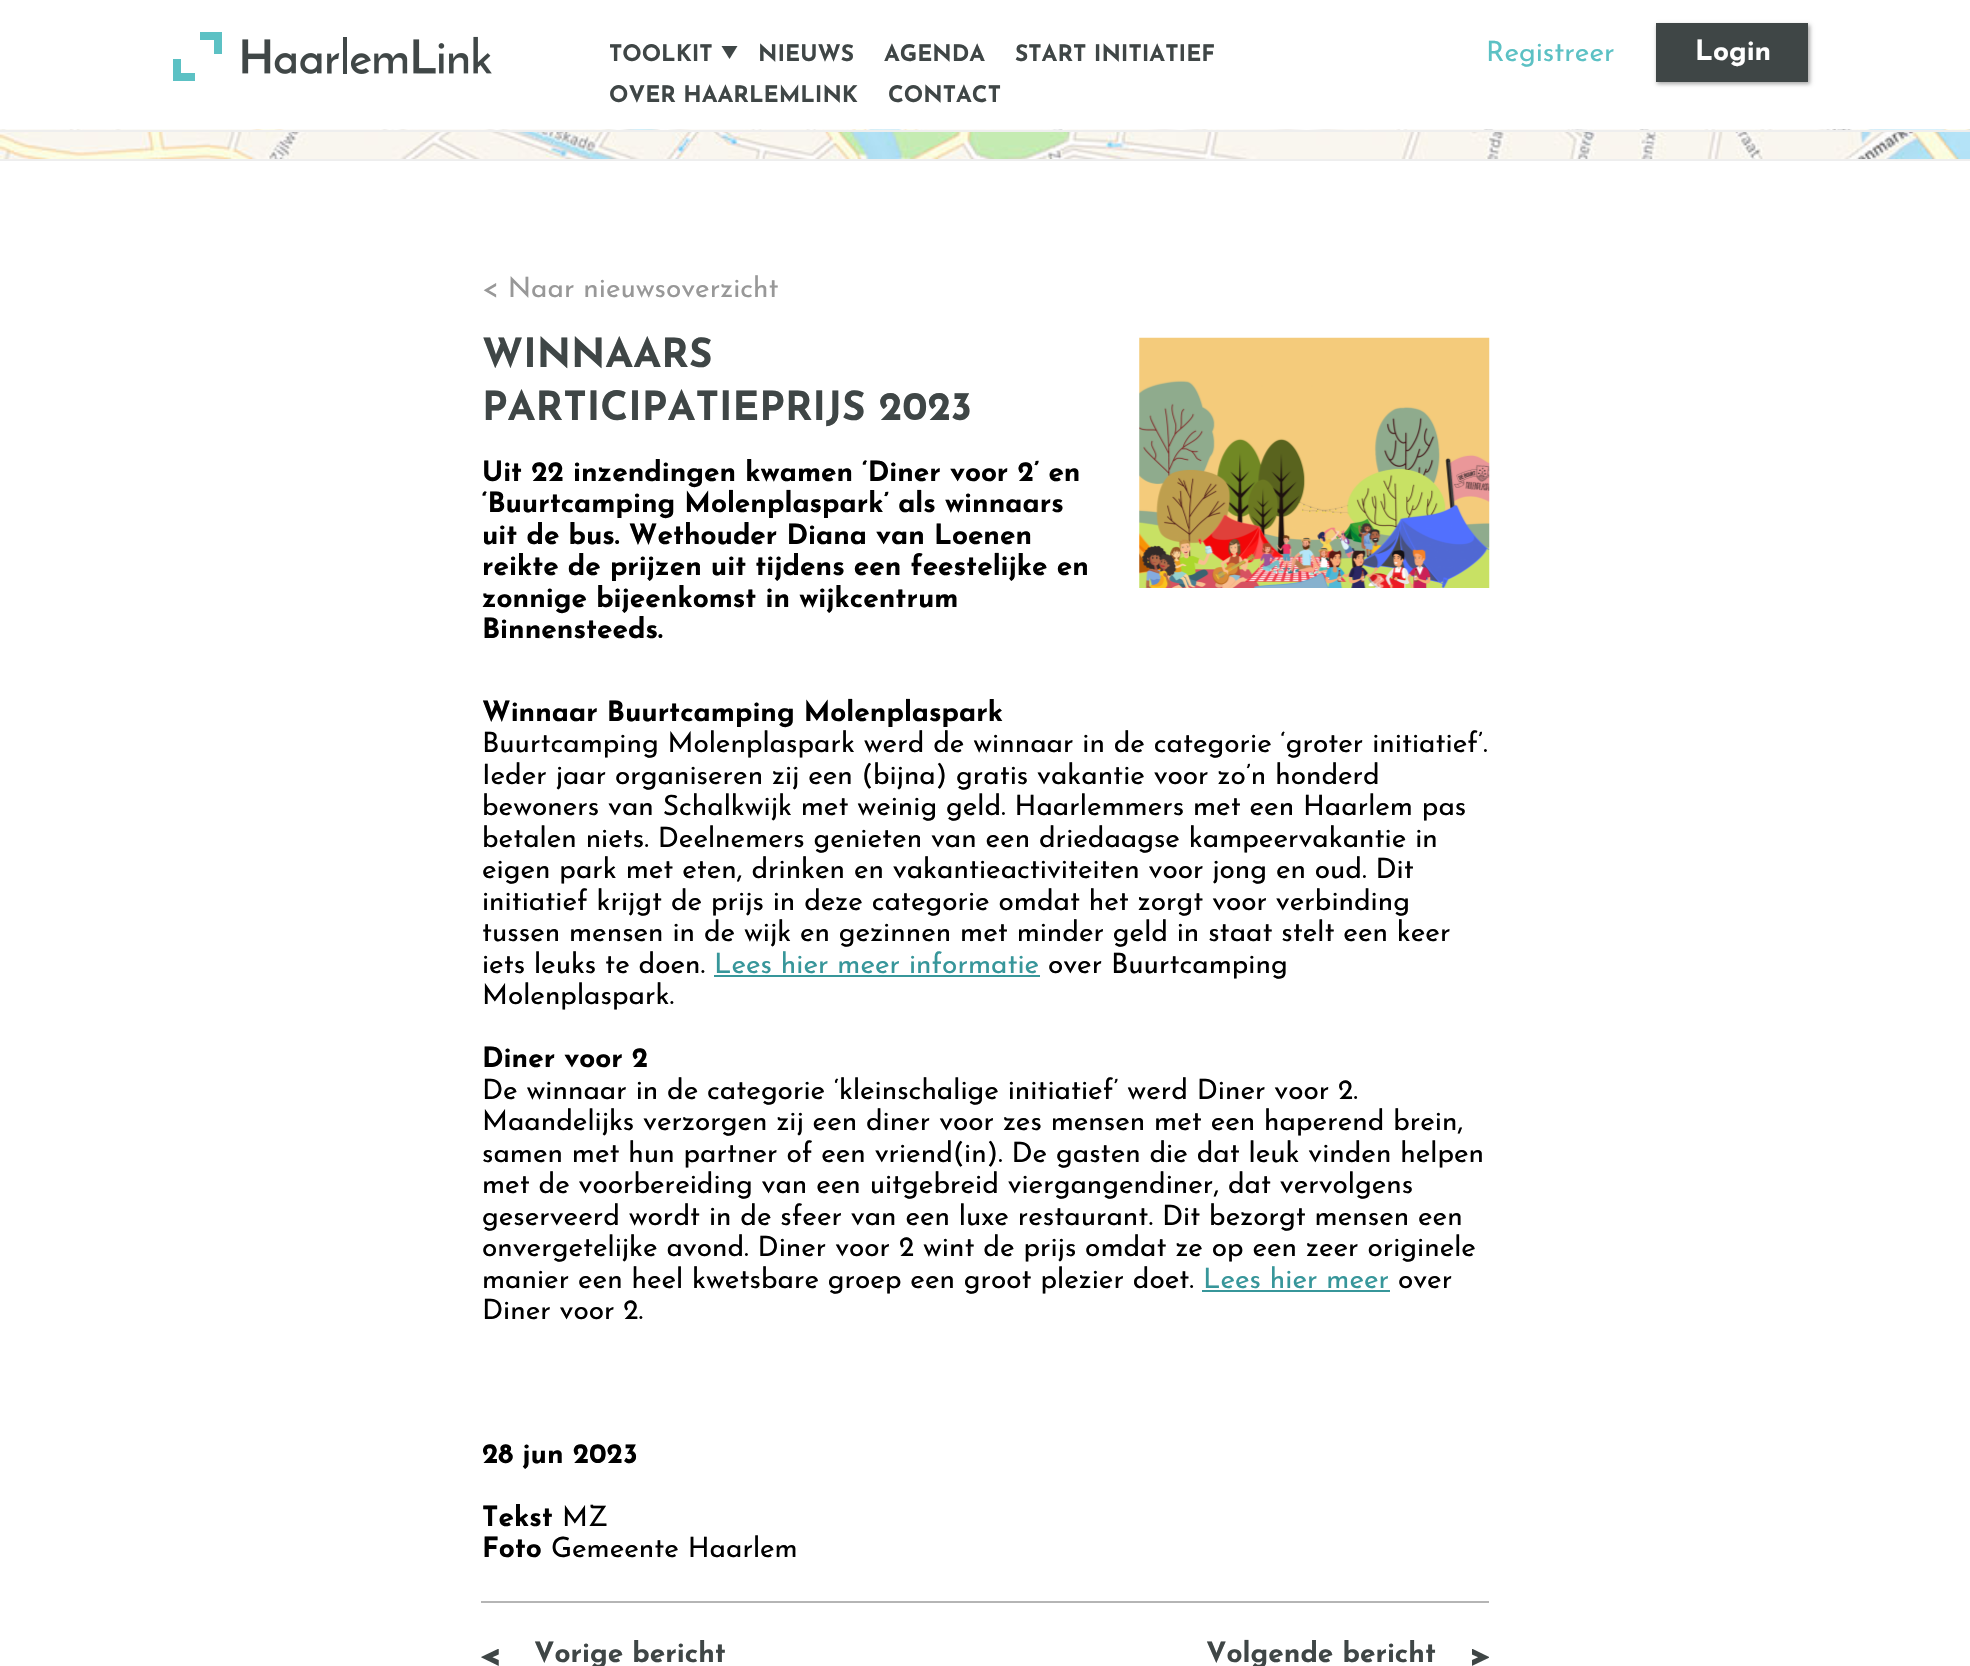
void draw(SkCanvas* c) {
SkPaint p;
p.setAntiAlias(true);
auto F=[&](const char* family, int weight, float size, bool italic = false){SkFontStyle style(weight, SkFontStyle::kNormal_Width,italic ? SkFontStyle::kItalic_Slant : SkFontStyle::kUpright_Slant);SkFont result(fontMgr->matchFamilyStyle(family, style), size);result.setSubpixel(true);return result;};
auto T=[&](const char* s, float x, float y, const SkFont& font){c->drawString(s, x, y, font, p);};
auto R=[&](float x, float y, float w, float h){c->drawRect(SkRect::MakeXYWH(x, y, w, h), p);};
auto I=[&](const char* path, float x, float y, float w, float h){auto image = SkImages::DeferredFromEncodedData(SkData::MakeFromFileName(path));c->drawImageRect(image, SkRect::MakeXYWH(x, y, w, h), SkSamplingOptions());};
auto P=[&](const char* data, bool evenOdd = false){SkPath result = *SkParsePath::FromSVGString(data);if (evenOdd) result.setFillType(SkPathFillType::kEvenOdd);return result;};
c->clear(0xffffffff);
I("1.png",173,32,319,49);
auto f1 = F("Josefin Sans",700,22.75);
p.setColor(0xff3f4646);
T("TOOLKIT",609,61,f1);
c->drawPath(P("M729.5 59l8-13h-16z"),p);
T("NIEUWS",758,61,f1);
T("AGENDA",884,61,f1);
T("START INITIATIEF",1015,61,f1);
T("OVER HAARLEMLINK",609,102,f1);
T("CONTACT",888,102,f1);
auto f2 = F("Josefin Sans",400,28);
p.setColor(0xff5cc1c4);
T("Registreer",1486,61,f2);
p.setColor(0x59000000);
p.setMaskFilter(SkMaskFilter::MakeBlur(kNormal_SkBlurStyle, 2));
c->drawRect(SkRect::MakeXYWH(1657,25,153,59),p);
p.setMaskFilter(nullptr);
p.setColor(0xff3f4646);
R(1656,23,152,59);
auto f3 = F("Josefin Sans",700,28);
p.setColor(0xffffffff);
T("Login",1695,60,f3);
I("2.png",0,129,1970,30);
p.setColor(0xffeeeeee);
R(0,130,1970,2);
R(0,159,1970,2);
p.setColor(0xff989898);
T("< Naar nieuwsoverzicht",482,297,f2);
auto f4 = F("Josefin Sans",700,40.25);
p.setColor(0xff3f4646);
T("WINNAARS",482,367,f4);
T("PARTICIPATIEPRIJS 2023",482,420,f4);
p.setColor(0xff000000);
T("Uit 22 inzendingen kwamen ‘Diner voor 2’ en",482,481,f3);
T("‘Buurtcamping Molenplaspark’ als winnaars",482,512,f3);
T("uit de bus. Wethouder Diana van Loenen",482,544,f3);
T("reikte de prijzen uit tijdens een feestelijke en",482,575,f3);
T("zonnige bijeenkomst in wijkcentrum",482,607,f3);
T("Binnensteeds.",482,638,f3);
I("3.png",1139,337,351,251);
T("Winnaar Buurtcamping Molenplaspark",482,721,f3);
T("Buurtcamping Molenplaspark werd de winnaar in de categorie ‘groter initiatief’.",482,752,f2);
T("Ieder jaar organiseren zij een (bijna) gratis vakantie voor zo’n honderd",482,784,f2);
T("bewoners van Schalkwijk met weinig geld. Haarlemmers met een Haarlem pas",482,815,f2);
T("betalen niets. Deelnemers genieten van een driedaagse kampeervakantie in",482,847,f2);
T("eigen park met eten, drinken en vakantieactiviteiten voor jong en oud. Dit",482,878,f2);
T("initiatief krijgt de prijs in deze categorie omdat het zorgt voor verbinding",482,910,f2);
T("tussen mensen in de wijk en gezinnen met minder geld in staat stelt een keer",482,941,f2);
T("iets leuks te doen.",482,973,f2);
p.setColor(0xff37969a);
T("Lees hier meer informatie",714,973,f2);
R(714,975,326,2);
p.setColor(0xff000000);
T("over Buurtcamping",1048,973,f2);
T("Molenplaspark.",482,1004,f2);
T("Diner voor 2",482,1067,f3);
T("De winnaar in de categorie ‘kleinschalige initiatief’ werd Diner voor 2.",482,1099,f2);
T("Maandelijks verzorgen zij een diner voor zes mensen met een haperend brein,",482,1130,f2);
T("samen met hun partner of een vriend(in). De gasten die dat leuk vinden helpen",482,1162,f2);
T("met de voorbereiding van een uitgebreid viergangendiner, dat vervolgens",482,1193,f2);
T("geserveerd wordt in de sfeer van een luxe restaurant. Dit bezorgt mensen een",482,1225,f2);
T("onvergetelijke avond. Diner voor 2 wint de prijs omdat ze op een zeer originele",482,1256,f2);
T("manier een heel kwetsbare groep een groot plezier doet.",482,1288,f2);
p.setColor(0xff37969a);
T("Lees hier meer",1203,1288,f2);
R(1202,1290,188,2);
p.setColor(0xff000000);
T("over",1398,1288,f2);
T("Diner voor 2.",482,1319,f2);
T("28 jun 2023",482,1463,f3);
T("Tekst",482,1526,f3);
T("MZ",562,1526,f2);
T("Foto",482,1557,f3);
T("Gemeente Haarlem",551,1557,f2);
p.setColor(0xffb5b5b5);
R(481,1601,1008,2);
I("4.png",481,1649,18,17);
p.setColor(0xff3f4646);
T("Vorige bericht",534,1662,f3);
T("Volgende bericht",1206,1662,f3);
I("5.png",1472,1649,17,17);
}
